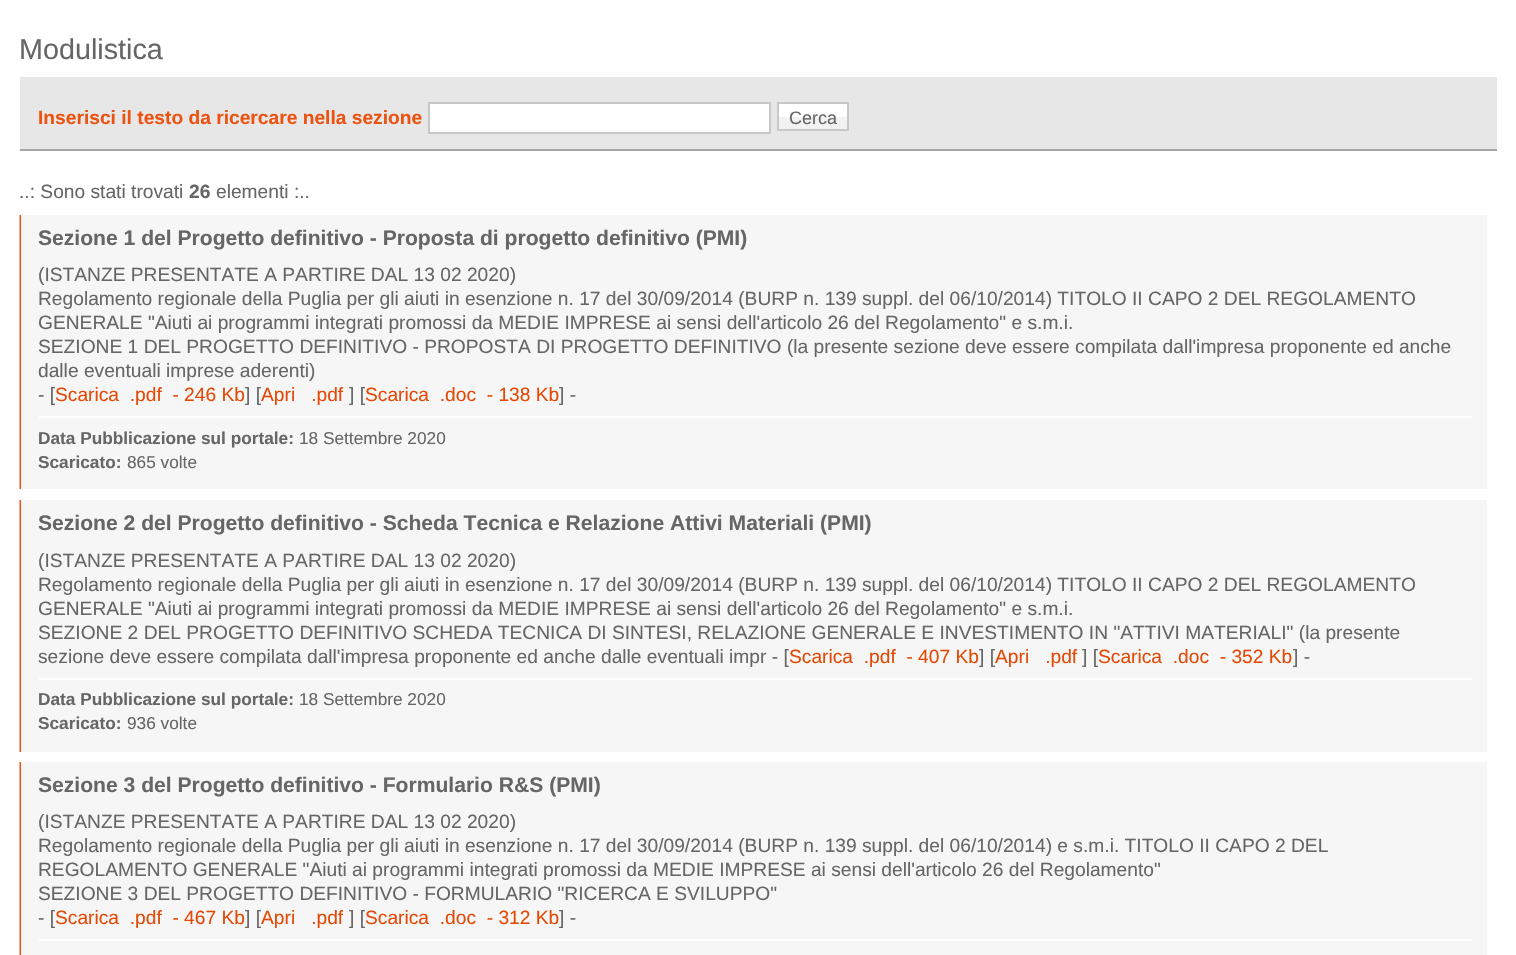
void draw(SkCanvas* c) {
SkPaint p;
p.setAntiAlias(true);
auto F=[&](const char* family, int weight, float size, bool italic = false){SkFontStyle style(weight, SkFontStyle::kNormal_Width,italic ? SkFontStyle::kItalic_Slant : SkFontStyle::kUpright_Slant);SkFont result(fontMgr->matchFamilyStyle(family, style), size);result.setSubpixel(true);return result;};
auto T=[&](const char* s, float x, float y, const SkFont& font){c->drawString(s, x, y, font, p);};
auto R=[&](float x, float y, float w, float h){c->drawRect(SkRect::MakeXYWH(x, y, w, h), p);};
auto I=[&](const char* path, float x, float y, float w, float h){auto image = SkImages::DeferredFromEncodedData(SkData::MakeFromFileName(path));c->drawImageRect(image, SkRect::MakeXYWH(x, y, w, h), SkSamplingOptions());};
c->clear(0xffffffff);
auto f1 = F("Liberation Sans",400,28.75);
p.setColor(0xff666666);
T("Modulistica",19,59,f1);
p.setColor(0xffe7e7e7);
R(20,77,1477,72);
p.setColor(0xffa6a6a6);
R(20,149,1477,2);
auto f2 = F("Liberation Sans",700,19.2);
p.setColor(0xffec5210);
T("Inserisci il testo da ricercare nella sezione",38,124,f2);
p.setColor(0xffffffff);
c->drawRect(SkRect::MakeXYWH(429,103,341,30),p);
p.setStroke(true);
p.setStrokeWidth(2);
p.setColor(0xffc7c7c7);
c->drawRect(SkRect::MakeXYWH(429,103,341,30),p);
p.setStroke(false);
p.setColor(0xffffffff);
R(779,104,68,13);
p.setColor(0xfff2f2f2);
R(779,117,68,12);
p.setStroke(true);
p.setColor(0xffc7c7c7);
c->drawRect(SkRect::MakeXYWH(778,103,70,27),p);
auto f3 = F("Liberation Sans",400,18);
p.setStroke(false);
p.setColor(0xff666666);
T("Cerca",789,124,f3);
auto f4 = F("Liberation Sans",400,19.2);
T("..: Sono stati trovati",19,198,f4);
T("26",189,198,f2);
T("elementi :..",216,198,f4);
p.setColor(0xfff6f6f6);
R(21,215,1466,274);
I("1.png",19,215,2,274);
auto f5 = F("Liberation Sans",700,21.1);
p.setColor(0xff666666);
T("Sezione 1 del Progetto definitivo - Proposta di progetto definitivo (PMI)",38,245,f5);
T("(ISTANZE PRESENTATE A PARTIRE DAL 13 02 2020)",38,281,f4);
T("Regolamento regionale della Puglia per gli aiuti in esenzione n. 17 del 30/09/2014 (BURP n. 139 suppl. del 06/10/2014) TITOLO II CAPO 2 DEL REGOLAMENTO",38,305,f4);
T("GENERALE \"Aiuti ai programmi integrati promossi da MEDIE IMPRESE ai sensi dell'articolo 26 del Regolamento\" e s.m.i.",38,329,f4);
T("SEZIONE 1 DEL PROGETTO DEFINITIVO - PROPOSTA DI PROGETTO DEFINITIVO (la presente sezione deve essere compilata dall'impresa proponente ed anche",38,353,f4);
T("dalle eventuali imprese aderenti)",38,377,f4);
T("- [",38,401,f4);
p.setColor(0xffe44906);
T("Scarica  .pdf  - 246 Kb",55,401,f4);
p.setColor(0xff666666);
T("] [",245,401,f4);
p.setColor(0xffe44906);
T("Apri   .pdf",261,401,f4);
p.setColor(0xff666666);
T("] [",349,401,f4);
p.setColor(0xffe44906);
T("Scarica  .doc  - 138 Kb",365,401,f4);
p.setColor(0xff666666);
T("] -",559,401,f4);
p.setColor(0xffffffff);
R(39,416,1433,2);
auto f6 = F("Liberation Sans",700,17.25);
p.setColor(0xff666666);
T("Data Pubblicazione sul portale:",38,444,f6);
auto f7 = F("Liberation Sans",400,17.25);
T("18 Settembre 2020",299,444,f7);
T("Scaricato:",38,468,f6);
T("865 volte",127,468,f7);
p.setColor(0xfff6f6f6);
R(21,500,1466,252);
I("2.png",19,500,2,252);
p.setColor(0xff666666);
T("Sezione 2 del Progetto definitivo - Scheda Tecnica e Relazione Attivi Materiali (PMI)",38,530,f5);
T("(ISTANZE PRESENTATE A PARTIRE DAL 13 02 2020)",38,567,f4);
T("Regolamento regionale della Puglia per gli aiuti in esenzione n. 17 del 30/09/2014 (BURP n. 139 suppl. del 06/10/2014) TITOLO II CAPO 2 DEL REGOLAMENTO",38,591,f4);
T("GENERALE \"Aiuti ai programmi integrati promossi da MEDIE IMPRESE ai sensi dell'articolo 26 del Regolamento\" e s.m.i.",38,615,f4);
T("SEZIONE 2 DEL PROGETTO DEFINITIVO SCHEDA TECNICA DI SINTESI, RELAZIONE GENERALE E INVESTIMENTO IN \"ATTIVI MATERIALI\" (la presente",38,639,f4);
T("sezione deve essere compilata dall'impresa proponente ed anche dalle eventuali impr - [",38,663,f4);
p.setColor(0xffe44906);
T("Scarica  .pdf  - 407 Kb",789,663,f4);
p.setColor(0xff666666);
T("] [",979,663,f4);
p.setColor(0xffe44906);
T("Apri   .pdf",995,663,f4);
p.setColor(0xff666666);
T("] [",1082,663,f4);
p.setColor(0xffe44906);
T("Scarica  .doc  - 352 Kb",1098,663,f4);
p.setColor(0xff666666);
T("] -",1293,663,f4);
p.setColor(0xffffffff);
R(39,678,1433,2);
p.setColor(0xff666666);
T("Data Pubblicazione sul portale:",38,705,f6);
T("18 Settembre 2020",299,705,f7);
T("Scaricato:",38,729,f6);
T("936 volte",127,729,f7);
p.setColor(0xfff6f6f6);
R(21,762,1466,193);
I("3.png",19,762,2,193);
p.setColor(0xff666666);
T("Sezione 3 del Progetto definitivo - Formulario R&S (PMI)",38,792,f5);
T("(ISTANZE PRESENTATE A PARTIRE DAL 13 02 2020)",38,828,f4);
T("Regolamento regionale della Puglia per gli aiuti in esenzione n. 17 del 30/09/2014 (BURP n. 139 suppl. del 06/10/2014) e s.m.i. TITOLO II CAPO 2 DEL",38,852,f4);
T("REGOLAMENTO GENERALE \"Aiuti ai programmi integrati promossi da MEDIE IMPRESE ai sensi dell'articolo 26 del Regolamento\"",38,876,f4);
T("SEZIONE 3 DEL PROGETTO DEFINITIVO - FORMULARIO \"RICERCA E SVILUPPO\"",38,900,f4);
T("- [",38,924,f4);
p.setColor(0xffe44906);
T("Scarica  .pdf  - 467 Kb",55,924,f4);
p.setColor(0xff666666);
T("] [",245,924,f4);
p.setColor(0xffe44906);
T("Apri   .pdf",261,924,f4);
p.setColor(0xff666666);
T("] [",349,924,f4);
p.setColor(0xffe44906);
T("Scarica  .doc  - 312 Kb",365,924,f4);
p.setColor(0xff666666);
T("] -",559,924,f4);
p.setColor(0xffffffff);
R(39,939,1433,2);
}
